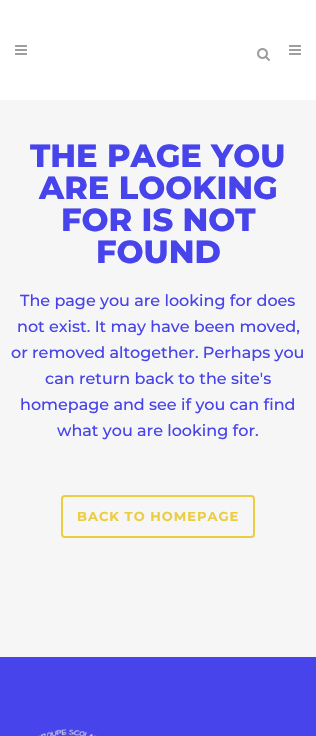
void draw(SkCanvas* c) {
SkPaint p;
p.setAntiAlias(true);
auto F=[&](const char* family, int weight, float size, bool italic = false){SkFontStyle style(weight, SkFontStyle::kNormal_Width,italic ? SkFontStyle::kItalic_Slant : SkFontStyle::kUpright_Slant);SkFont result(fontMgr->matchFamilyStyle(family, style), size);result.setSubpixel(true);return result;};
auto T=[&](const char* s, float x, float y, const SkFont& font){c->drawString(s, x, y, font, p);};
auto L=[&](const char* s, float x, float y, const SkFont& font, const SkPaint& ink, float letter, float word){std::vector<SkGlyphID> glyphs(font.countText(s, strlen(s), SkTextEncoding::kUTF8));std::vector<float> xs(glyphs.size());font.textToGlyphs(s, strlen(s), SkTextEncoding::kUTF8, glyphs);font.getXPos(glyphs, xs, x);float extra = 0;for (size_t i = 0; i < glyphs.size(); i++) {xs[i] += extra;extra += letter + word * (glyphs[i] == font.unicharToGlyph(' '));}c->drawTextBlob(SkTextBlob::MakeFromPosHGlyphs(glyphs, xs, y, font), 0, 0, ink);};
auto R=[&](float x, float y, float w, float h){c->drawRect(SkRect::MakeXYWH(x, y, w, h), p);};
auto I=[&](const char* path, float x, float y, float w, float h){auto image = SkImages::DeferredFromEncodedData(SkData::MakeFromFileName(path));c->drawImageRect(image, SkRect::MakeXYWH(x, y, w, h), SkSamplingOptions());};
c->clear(0xfff6f6f6);
p.setColor(0xffffffff);
R(0,0,316,100);
I("1.png",15,45,12,10);
I("2.png",257,48,13,13);
I("1.png",289,45,12,10);
auto f1 = F("Montserrat",800,32);
p.setColor(0xff4844eb);
T("THE PAGE YOU",30,167,f1);
T("ARE LOOKING",39,199,f1);
T("FOR IS NOT",61,231,f1);
T("FOUND",96,263,f1);
auto f2 = F("Montserrat",500,16);
T("The page you are looking for does",20,306,f2);
T("not exist. It may have been moved,",17,332,f2);
T("or removed altogether. Perhaps you",11,358,f2);
T("can return back to the site's",45,384,f2);
T("homepage and see if you can find",20,410,f2);
T("what you are looking for.",57,436,f2);
p.setStroke(true);
p.setStrokeWidth(2);
p.setColor(0xffebcd44);
c->drawRoundRect(SkRect::MakeXYWH(62,496,192,41),3,3,p);
auto f3 = F("Montserrat",700,13);
p.setStroke(false);
L("BACK TO HOMEPAGE",77,521,f3,p,1,0);
p.setColor(0xff4844eb);
R(0,657,316,79);
I("3.png",38,729,60,7);
}
